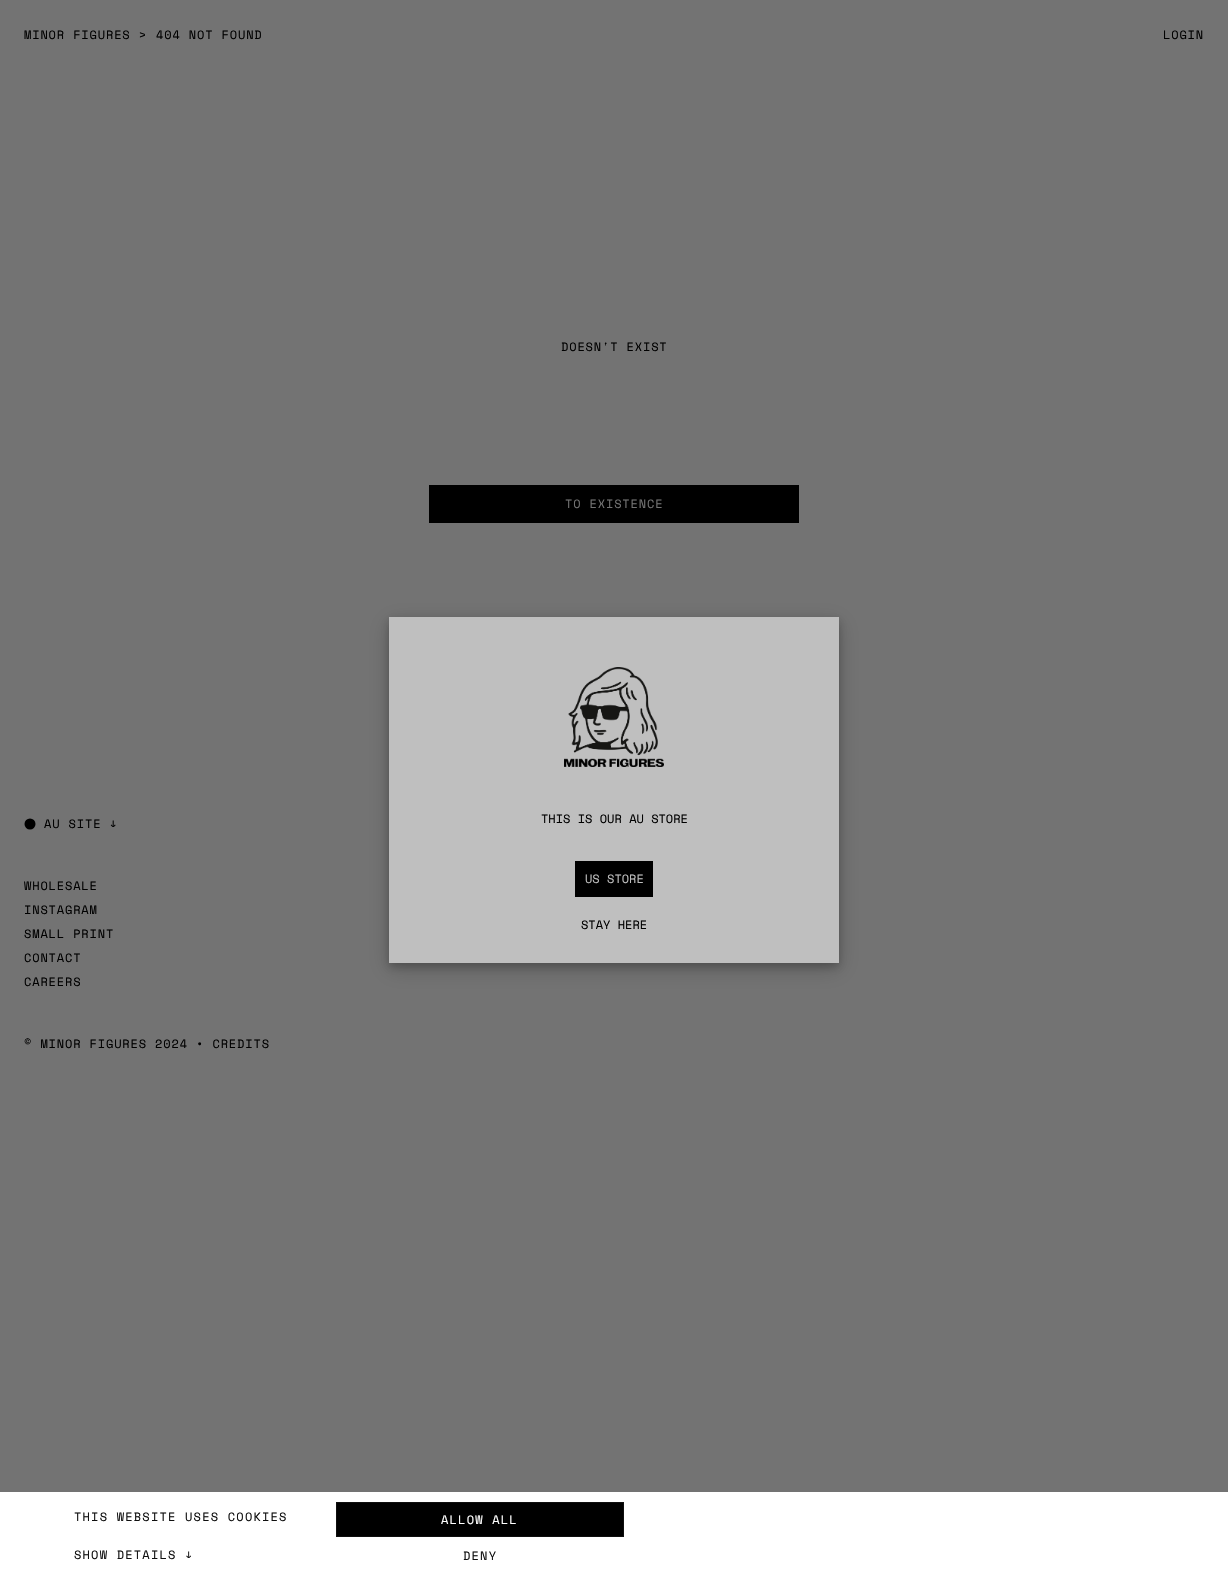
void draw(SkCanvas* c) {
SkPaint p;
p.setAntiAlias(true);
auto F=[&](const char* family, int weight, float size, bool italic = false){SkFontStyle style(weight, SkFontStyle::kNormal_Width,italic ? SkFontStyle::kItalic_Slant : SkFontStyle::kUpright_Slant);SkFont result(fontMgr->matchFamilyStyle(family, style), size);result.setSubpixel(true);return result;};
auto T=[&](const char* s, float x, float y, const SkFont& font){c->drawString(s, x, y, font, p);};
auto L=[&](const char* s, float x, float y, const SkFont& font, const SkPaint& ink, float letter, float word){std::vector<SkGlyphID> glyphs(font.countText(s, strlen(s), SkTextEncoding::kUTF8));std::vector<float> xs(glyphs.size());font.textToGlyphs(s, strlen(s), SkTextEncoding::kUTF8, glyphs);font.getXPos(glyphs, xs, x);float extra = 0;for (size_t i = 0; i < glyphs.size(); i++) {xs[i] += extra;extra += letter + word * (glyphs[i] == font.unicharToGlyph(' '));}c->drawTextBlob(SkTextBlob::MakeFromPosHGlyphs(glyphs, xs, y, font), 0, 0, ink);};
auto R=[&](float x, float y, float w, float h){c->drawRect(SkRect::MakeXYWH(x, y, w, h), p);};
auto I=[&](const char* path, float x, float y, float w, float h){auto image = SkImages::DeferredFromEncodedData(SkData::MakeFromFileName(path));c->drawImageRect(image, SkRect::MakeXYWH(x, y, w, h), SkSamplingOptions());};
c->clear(0xff737373);
auto f1 = F("Space Mono",400,12);
p.setColor(0xff000000);
L("MINOR FIGURES >",24,39,f1,p,.85,0);
L("404 NOT FOUND",156,39,f1,p,.85,0);
L("LOGIN",1163,39,f1,p,.85,0);
L("DOESN'T EXIST",561,351,f1,p,.85,0);
R(429,485,370,38);
p.setColor(0xff737373);
L("TO EXISTENCE",565,508,f1,p,.85,0);
p.setColor(0xff000000);
c->drawCircle(30,824,5.5,p);
L("AU SITE ↓",44,828,f1,p,.85,0);
L("WHOLESALE",24,890,f1,p,.85,0);
L("INSTAGRAM",24,914,f1,p,.85,0);
L("SMALL PRINT",24,938,f1,p,.85,0);
L("CONTACT",24,962,f1,p,.85,0);
L("CAREERS",24,986,f1,p,.85,0);
L("© MINOR FIGURES 2024 • CREDITS",24,1048,f1,p,.85,0);
p.setColor(0x30000000);
p.setMaskFilter(SkMaskFilter::MakeBlur(kNormal_SkBlurStyle, 10));
c->drawRect(SkRect::MakeXYWH(389,623,450,346),p);
p.setMaskFilter(nullptr);
p.setColor(0x33000000);
p.setMaskFilter(SkMaskFilter::MakeBlur(kNormal_SkBlurStyle, 4));
c->drawRect(SkRect::MakeXYWH(389,621,450,346),p);
p.setMaskFilter(nullptr);
p.setColor(0xffbfbfbf);
R(389,617,450,346);
I("1.png",564,667,100,100);
p.setColor(0xff000000);
T("THIS IS OUR AU STORE",541,823,f1);
R(575,861,78,36);
p.setColor(0xffbfbfbf);
T("US STORE",585,883,f1);
p.setColor(0xff000000);
T("STAY HERE",581,929,f1);
p.setColor(0xffffffff);
R(0,1492,1228,87);
p.setColor(0xff0f0f0f);
L("THIS WEBSITE USES COOKIES",74,1521,f1,p,1.2,0);
L("SHOW DETAILS ↓",74,1559,f1,p,1.2,0);
p.setColor(0xff000000);
c->drawRect(SkRect::MakeXYWH(336.5,1502.5,287,34),p);
p.setStroke(true);
p.setStrokeWidth(1);
p.setColor(0xff0f0f0f);
c->drawRect(SkRect::MakeXYWH(336.5,1502.5,287,34),p);
p.setStroke(false);
p.setColor(0xffffffff);
L("ALLOW ALL",441,1524,f1,p,1.2,0);
p.setColor(0xff0f0f0f);
L("DENY",463,1560,f1,p,1.2,0);
}
